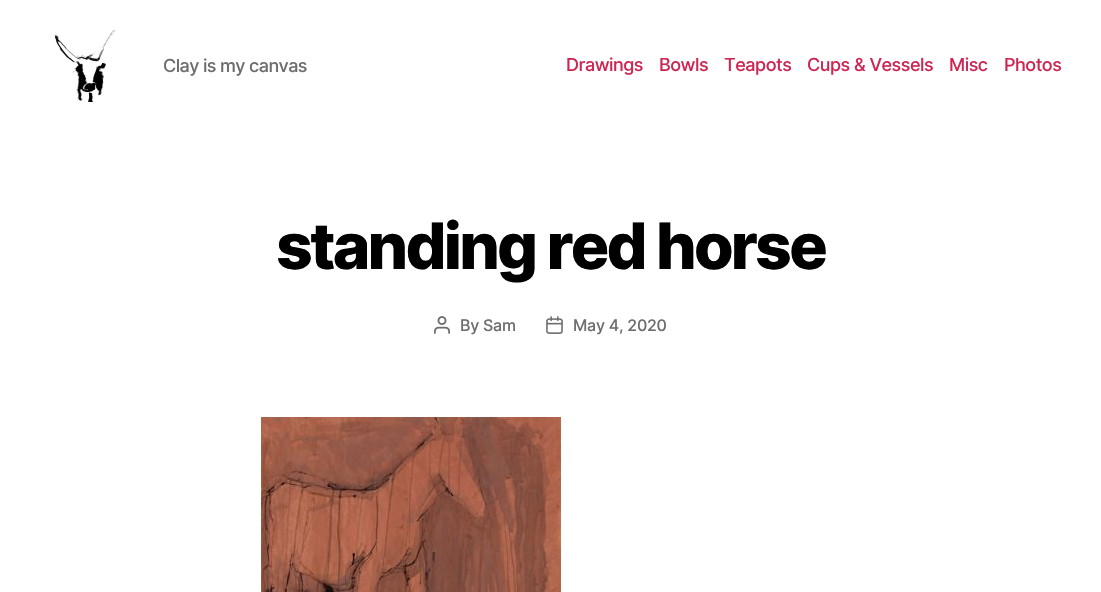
void draw(SkCanvas* c) {
SkPaint p;
p.setAntiAlias(true);
auto F=[&](const char* family, int weight, float size, bool italic = false){SkFontStyle style(weight, SkFontStyle::kNormal_Width,italic ? SkFontStyle::kItalic_Slant : SkFontStyle::kUpright_Slant);SkFont result(fontMgr->matchFamilyStyle(family, style), size);result.setSubpixel(true);return result;};
auto L=[&](const char* s, float x, float y, const SkFont& font, const SkPaint& ink, float letter, float word){std::vector<SkGlyphID> glyphs(font.countText(s, strlen(s), SkTextEncoding::kUTF8));std::vector<float> xs(glyphs.size());font.textToGlyphs(s, strlen(s), SkTextEncoding::kUTF8, glyphs);font.getXPos(glyphs, xs, x);float extra = 0;for (size_t i = 0; i < glyphs.size(); i++) {xs[i] += extra;extra += letter + word * (glyphs[i] == font.unicharToGlyph(' '));}c->drawTextBlob(SkTextBlob::MakeFromPosHGlyphs(glyphs, xs, y, font), 0, 0, ink);};
auto I=[&](const char* path, float x, float y, float w, float h){auto image = SkImages::DeferredFromEncodedData(SkData::MakeFromFileName(path));c->drawImageRect(image, SkRect::MakeXYWH(x, y, w, h), SkSamplingOptions());};
c->clear(0xffffffff);
I("1.png",54,30,61,72);
auto f1 = F("Inter",500,18);
p.setColor(0xff6d6d6d);
L("Clay is my canvas",163,72,f1,p,-.6,0);
p.setColor(0xffcd2653);
L("Drawings",566,71,f1,p,-.5,0);
L("Bowls",659,71,f1,p,-.5,0);
L("Teapots",724,71,f1,p,-.5,0);
L("Cups & Vessels",807,71,f1,p,-.5,0);
L("Misc",949,71,f1,p,-.5,0);
L("Photos",1004,71,f1,p,-.5,0);
auto f2 = F("Inter",800,64);
p.setColor(0xff000000);
L("standing red horse",276,269,f2,p,-2.7,0);
I("2.png",434,316,16,18);
auto f3 = F("Inter",500,16);
p.setColor(0xff6d6d6d);
L("By Sam",460,331,f3,p,-.25,0);
I("3.png",546,316,17,18);
L("May 4, 2020",573,331,f3,p,-.25,0);
I("4.png",261,417,300,175);
}
